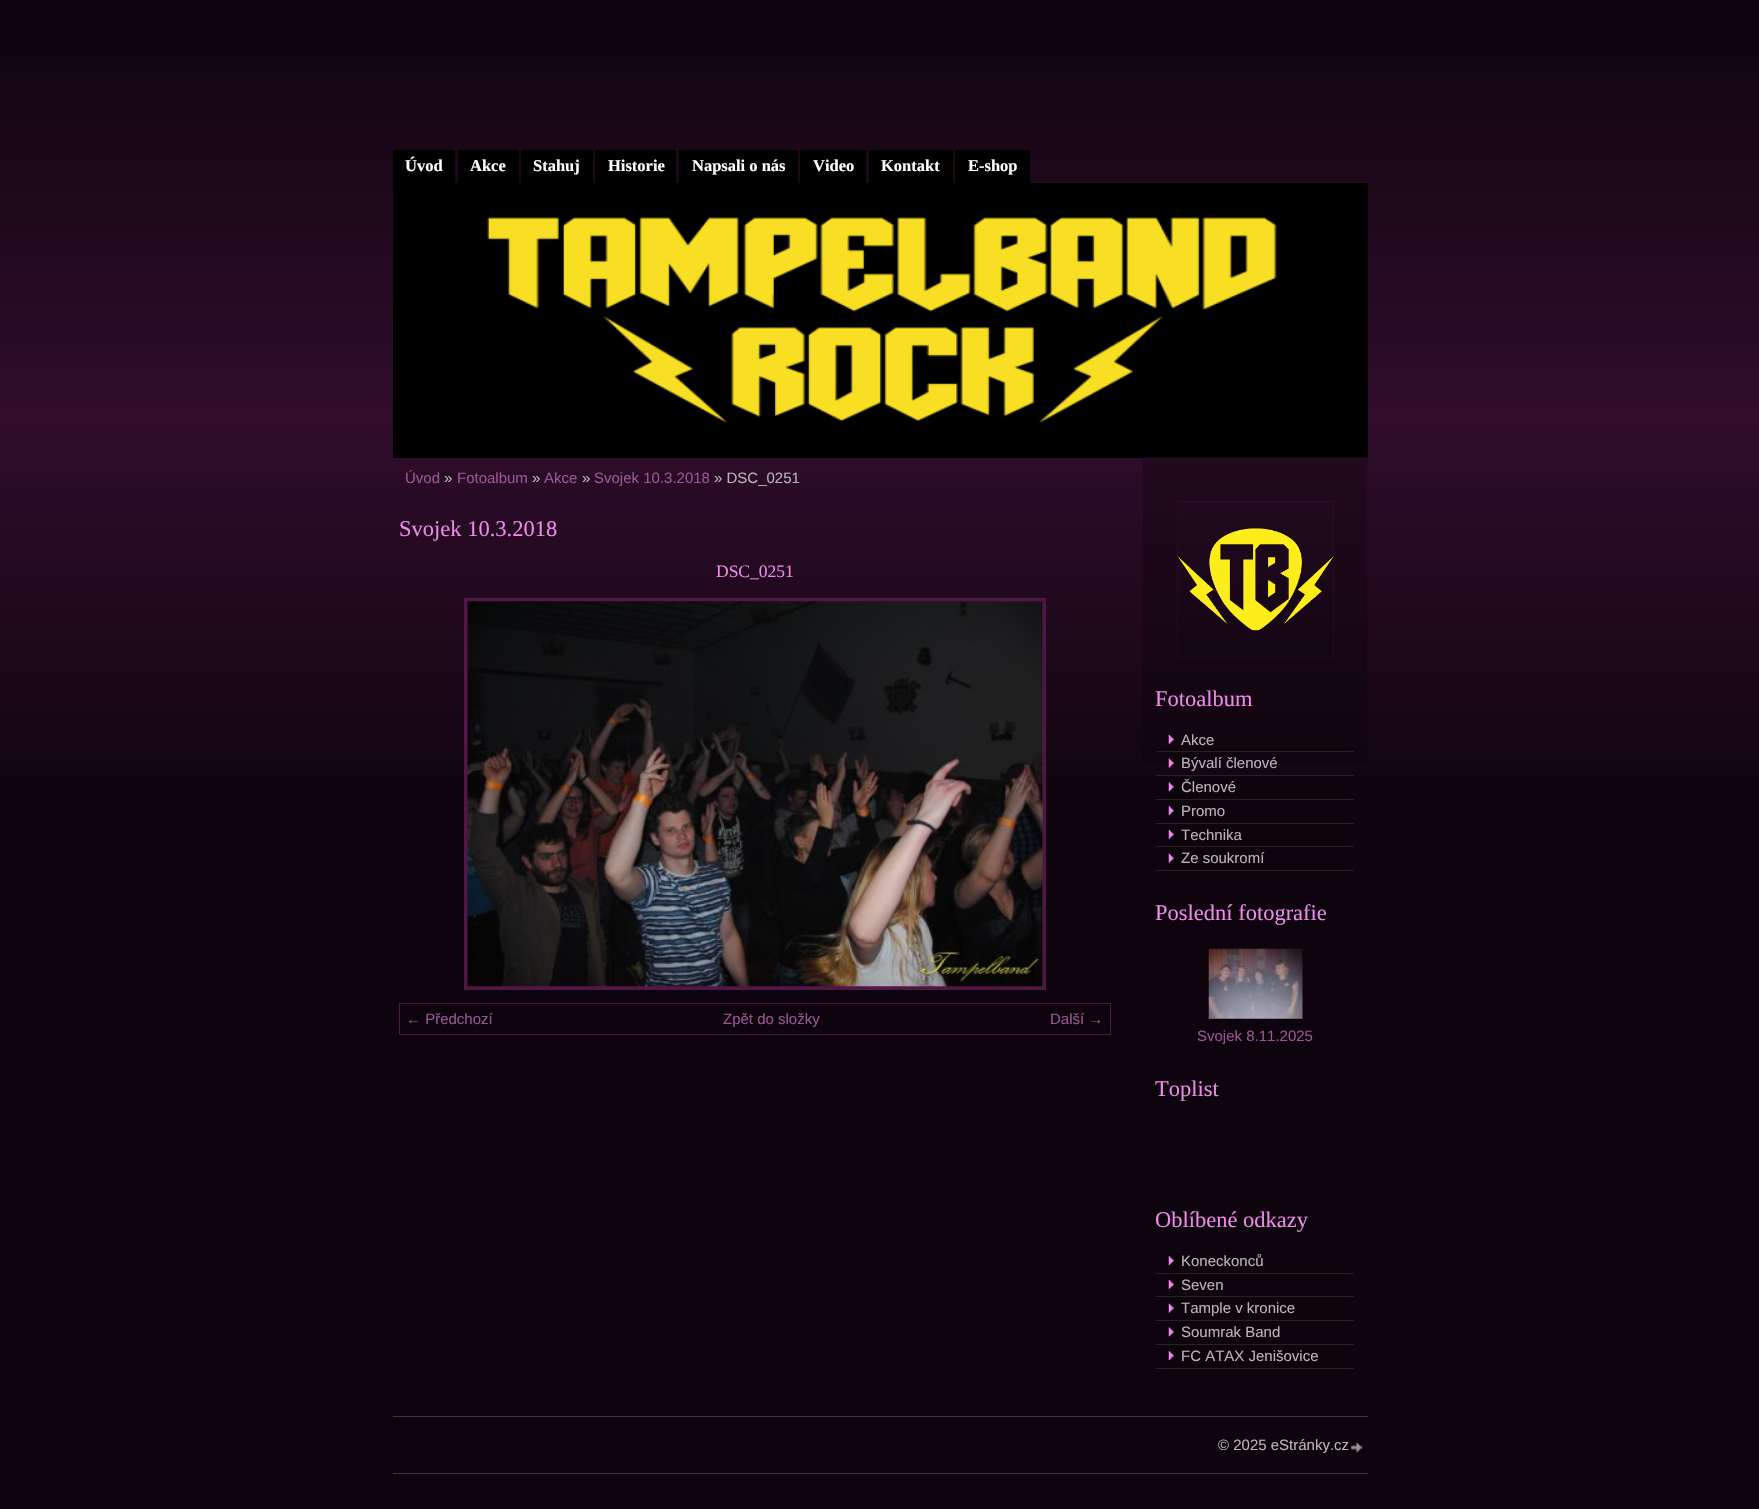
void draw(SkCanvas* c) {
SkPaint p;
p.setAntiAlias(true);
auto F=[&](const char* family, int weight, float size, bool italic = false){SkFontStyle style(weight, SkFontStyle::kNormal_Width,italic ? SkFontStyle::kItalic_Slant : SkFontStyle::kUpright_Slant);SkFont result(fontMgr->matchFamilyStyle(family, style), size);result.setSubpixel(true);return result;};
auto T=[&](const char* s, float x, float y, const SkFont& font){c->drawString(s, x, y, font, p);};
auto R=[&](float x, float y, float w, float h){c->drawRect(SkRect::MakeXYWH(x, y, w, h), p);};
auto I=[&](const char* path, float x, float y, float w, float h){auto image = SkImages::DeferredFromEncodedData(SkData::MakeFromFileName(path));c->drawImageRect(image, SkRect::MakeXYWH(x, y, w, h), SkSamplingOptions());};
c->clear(0xff0e040d);
I("1.png",0,57,1759,720);
p.setColor(0xff000000);
R(393,150,62,33);
auto f1 = F("Liberation Serif",700,16.5);
p.setColor(0xffffffff);
T("Úvod",405,171,f1);
p.setColor(0xff000000);
R(458,150,61,33);
p.setColor(0xffffffff);
T("Akce",470,171,f1);
p.setColor(0xff000000);
R(521,150,72,33);
p.setColor(0xffffffff);
T("Stahuj",533,171,f1);
p.setColor(0xff000000);
R(595,150,81,33);
p.setColor(0xffffffff);
T("Historie",608,171,f1);
p.setColor(0xff000000);
R(679,150,119,33);
p.setColor(0xffffffff);
T("Napsali o nás",692,171,f1);
p.setColor(0xff000000);
R(800,150,66,33);
p.setColor(0xffffffff);
T("Video",813,171,f1);
p.setColor(0xff000000);
R(869,150,84,33);
p.setColor(0xffffffff);
T("Kontakt",881,171,f1);
p.setColor(0xff000000);
R(955,150,75,33);
p.setColor(0xffffffff);
T("E-shop",968,171,f1);
p.setColor(0xff000000);
R(393,183,975,275);
I("2.png",487,217,790,206);
auto f2 = F("Liberation Sans",400,15);
p.setColor(0xff985595);
T("Úvod",405,483,f2);
p.setColor(0xffb7b4b7);
T("»",444,483,f2);
p.setColor(0xff985595);
T("Fotoalbum",457,483,f2);
p.setColor(0xffb7b4b7);
T("»",532,483,f2);
p.setColor(0xff985595);
T("Akce",544,483,f2);
p.setColor(0xffb7b4b7);
T("»",582,483,f2);
p.setColor(0xff985595);
T("Svojek 10.3.2018",594,483,f2);
p.setColor(0xffb7b4b7);
T("» DSC_0251",714,483,f2);
auto f3 = F("Liberation Serif",400,22.5);
p.setColor(0xffee8aeb);
T("Svojek 10.3.2018",399,536,f3);
auto f4 = F("Liberation Serif",400,17.5);
T("DSC_0251",716,577,f4);
p.setStroke(true);
p.setStrokeWidth(4);
p.setColor(0xff511648);
c->drawRect(SkRect::MakeXYWH(466,600,578,388),p);
I("3.png",467,601,576,386);
p.setStrokeWidth(1);
c->drawRect(SkRect::MakeXYWH(399.5,1003.5,711,31),p);
p.setStroke(false);
p.setColor(0xff985595);
T("← Předchozí",406,1024,f2);
T("Zpět do složky",723,1024,f2);
T("Další →",1050,1024,f2);
I("4.png",1142,457,226,306);
I("5.png",1177,501,157,157);
p.setColor(0xffee8aeb);
T("Fotoalbum",1155,706,f3);
I("6.png",1168,735,6,9);
p.setColor(0xff2c201a);
R(1156,751,198,1);
p.setColor(0xffb7b4b7);
T("Akce",1181,745,f2);
I("7.png",1168,758,6,10);
p.setColor(0xff2c201a);
R(1156,775,198,1);
p.setColor(0xffb7b4b7);
T("Bývalí členové",1181,768,f2);
I("8.png",1168,782,6,10);
p.setColor(0xff2c201a);
R(1156,799,198,1);
p.setColor(0xffb7b4b7);
T("Členové",1181,792,f2);
I("9.png",1168,806,6,9);
p.setColor(0xff2c201a);
R(1156,823,198,1);
p.setColor(0xffb7b4b7);
T("Promo",1181,816,f2);
I("10.png",1168,830,6,9);
p.setColor(0xff2c201a);
R(1156,846,198,1);
p.setColor(0xffb7b4b7);
T("Technika",1181,840,f2);
I("11.png",1168,853,6,10);
p.setColor(0xff2c201a);
R(1156,870,198,1);
p.setColor(0xffb7b4b7);
T("Ze soukromí",1181,863,f2);
p.setColor(0xffee8aeb);
T("Poslední fotografie",1155,920,f3);
I("12.png",1208,948,95,71);
p.setColor(0xff985595);
T("Svojek 8.11.2025",1197,1041,f2);
p.setColor(0xffee8aeb);
T("Toplist",1155,1096,f3);
T("Oblíbené odkazy",1155,1227,f3);
I("9.png",1168,1256,6,9);
p.setColor(0xff2c201a);
R(1156,1273,198,1);
p.setColor(0xffb7b4b7);
T("Koneckonců",1181,1266,f2);
I("10.png",1168,1280,6,9);
p.setColor(0xff2c201a);
R(1156,1296,198,1);
p.setColor(0xffb7b4b7);
T("Seven",1181,1290,f2);
I("11.png",1168,1303,6,10);
p.setColor(0xff2c201a);
R(1156,1320,198,1);
p.setColor(0xffb7b4b7);
T("Tample v kronice",1181,1313,f2);
I("8.png",1168,1327,6,10);
p.setColor(0xff2c201a);
R(1156,1344,198,1);
p.setColor(0xffb7b4b7);
T("Soumrak Band",1181,1337,f2);
I("9.png",1168,1351,6,9);
p.setColor(0xff2c201a);
R(1156,1368,198,1);
p.setColor(0xffb7b4b7);
T("FC ATAX Jenišovice",1181,1361,f2);
p.setColor(0xff3e363d);
R(393,1416,975,1);
R(393,1473,975,1);
p.setColor(0xffb7b4b7);
T("© 2025 eStránky.cz",1218,1450,f2);
I("13.png",1351,1442,12,11);
}
